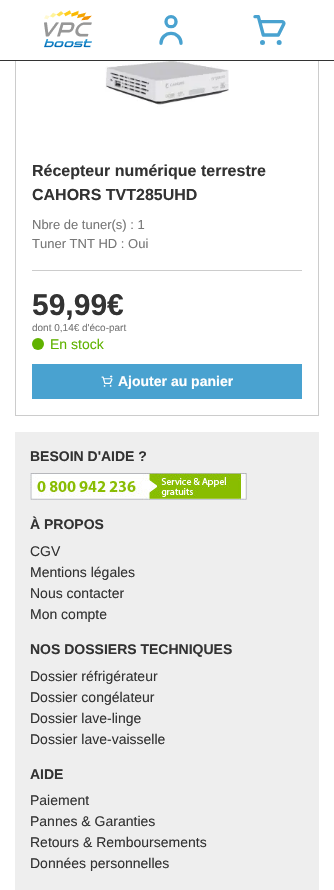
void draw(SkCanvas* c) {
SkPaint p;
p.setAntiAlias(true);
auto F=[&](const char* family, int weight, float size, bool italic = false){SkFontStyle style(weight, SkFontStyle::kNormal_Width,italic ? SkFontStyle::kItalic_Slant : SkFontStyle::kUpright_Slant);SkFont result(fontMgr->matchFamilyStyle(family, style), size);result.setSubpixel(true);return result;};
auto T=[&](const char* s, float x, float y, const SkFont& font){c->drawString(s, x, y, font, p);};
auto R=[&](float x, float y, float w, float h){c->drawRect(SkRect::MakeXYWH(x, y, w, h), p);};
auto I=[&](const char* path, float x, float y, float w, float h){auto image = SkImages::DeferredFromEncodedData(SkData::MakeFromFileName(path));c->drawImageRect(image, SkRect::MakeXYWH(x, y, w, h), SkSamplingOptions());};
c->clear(0xffffffff);
p.setStroke(true);
p.setStrokeWidth(1);
p.setColor(0xffcccccc);
c->drawRect(SkRect::MakeXYWH(15.5,-.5,303,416),p);
p.setStroke(false);
p.setColor(0xffffffff);
R(15,0,304,60);
p.setColor(0xff333333);
R(0,60,334,1);
I("1.png",44,10,48,38);
I("2.png",159,15,24,30);
I("3.png",253,15,33,30);
I("4.png",105,61,124,46);
auto f1 = F("Liberation Sans",700,16);
T("Récepteur numérique terrestre",32,176,f1);
T("CAHORS TVT285UHD",32,200,f1);
auto f2 = F("Liberation Sans",400,13);
p.setColor(0xff777777);
T("Nbre de tuner(s) : 1",32,229,f2);
T("Tuner TNT HD : Oui",32,248,f2);
p.setColor(0xffcccccc);
R(32,270,270,1);
auto f3 = F("Liberation Sans",700,30);
p.setColor(0xff333333);
T("59,99€",32,315,f3);
auto f4 = F("Liberation Sans",400,10);
p.setColor(0xff777777);
T("dont 0,14€ d'éco-part",32,331,f4);
p.setColor(0xff60b200);
c->drawCircle(38,344,6,p);
auto f5 = F("Liberation Sans",400,14);
T("En stock",50,349,f5);
p.setColor(0xff49a2d0);
R(32,364,270,35);
I("5.png",101,375,12,12);
auto f6 = F("Liberation Sans",700,14);
p.setColor(0xffffffff);
T("Ajouter au panier",118,386,f6);
p.setColor(0xffeeeeee);
R(15,432,304,458);
p.setColor(0xff333333);
T("BESOIN D'AIDE ?",30,461,f6);
I("6.png",30,473,217,27);
T("À PROPOS",30,529,f6);
T("CGV",30,556,f5);
T("Mentions légales",30,577,f5);
T("Nous contacter",30,598,f5);
T("Mon compte",30,619,f5);
T("NOS DOSSIERS TECHNIQUES",30,654,f6);
T("Dossier réfrigérateur",30,681,f5);
T("Dossier congélateur",30,702,f5);
T("Dossier lave-linge",30,723,f5);
T("Dossier lave-vaisselle",30,744,f5);
T("AIDE",30,779,f6);
T("Paiement",30,805,f5);
T("Pannes & Garanties",30,826,f5);
T("Retours & Remboursements",30,847,f5);
T("Données personnelles",30,868,f5);
}
